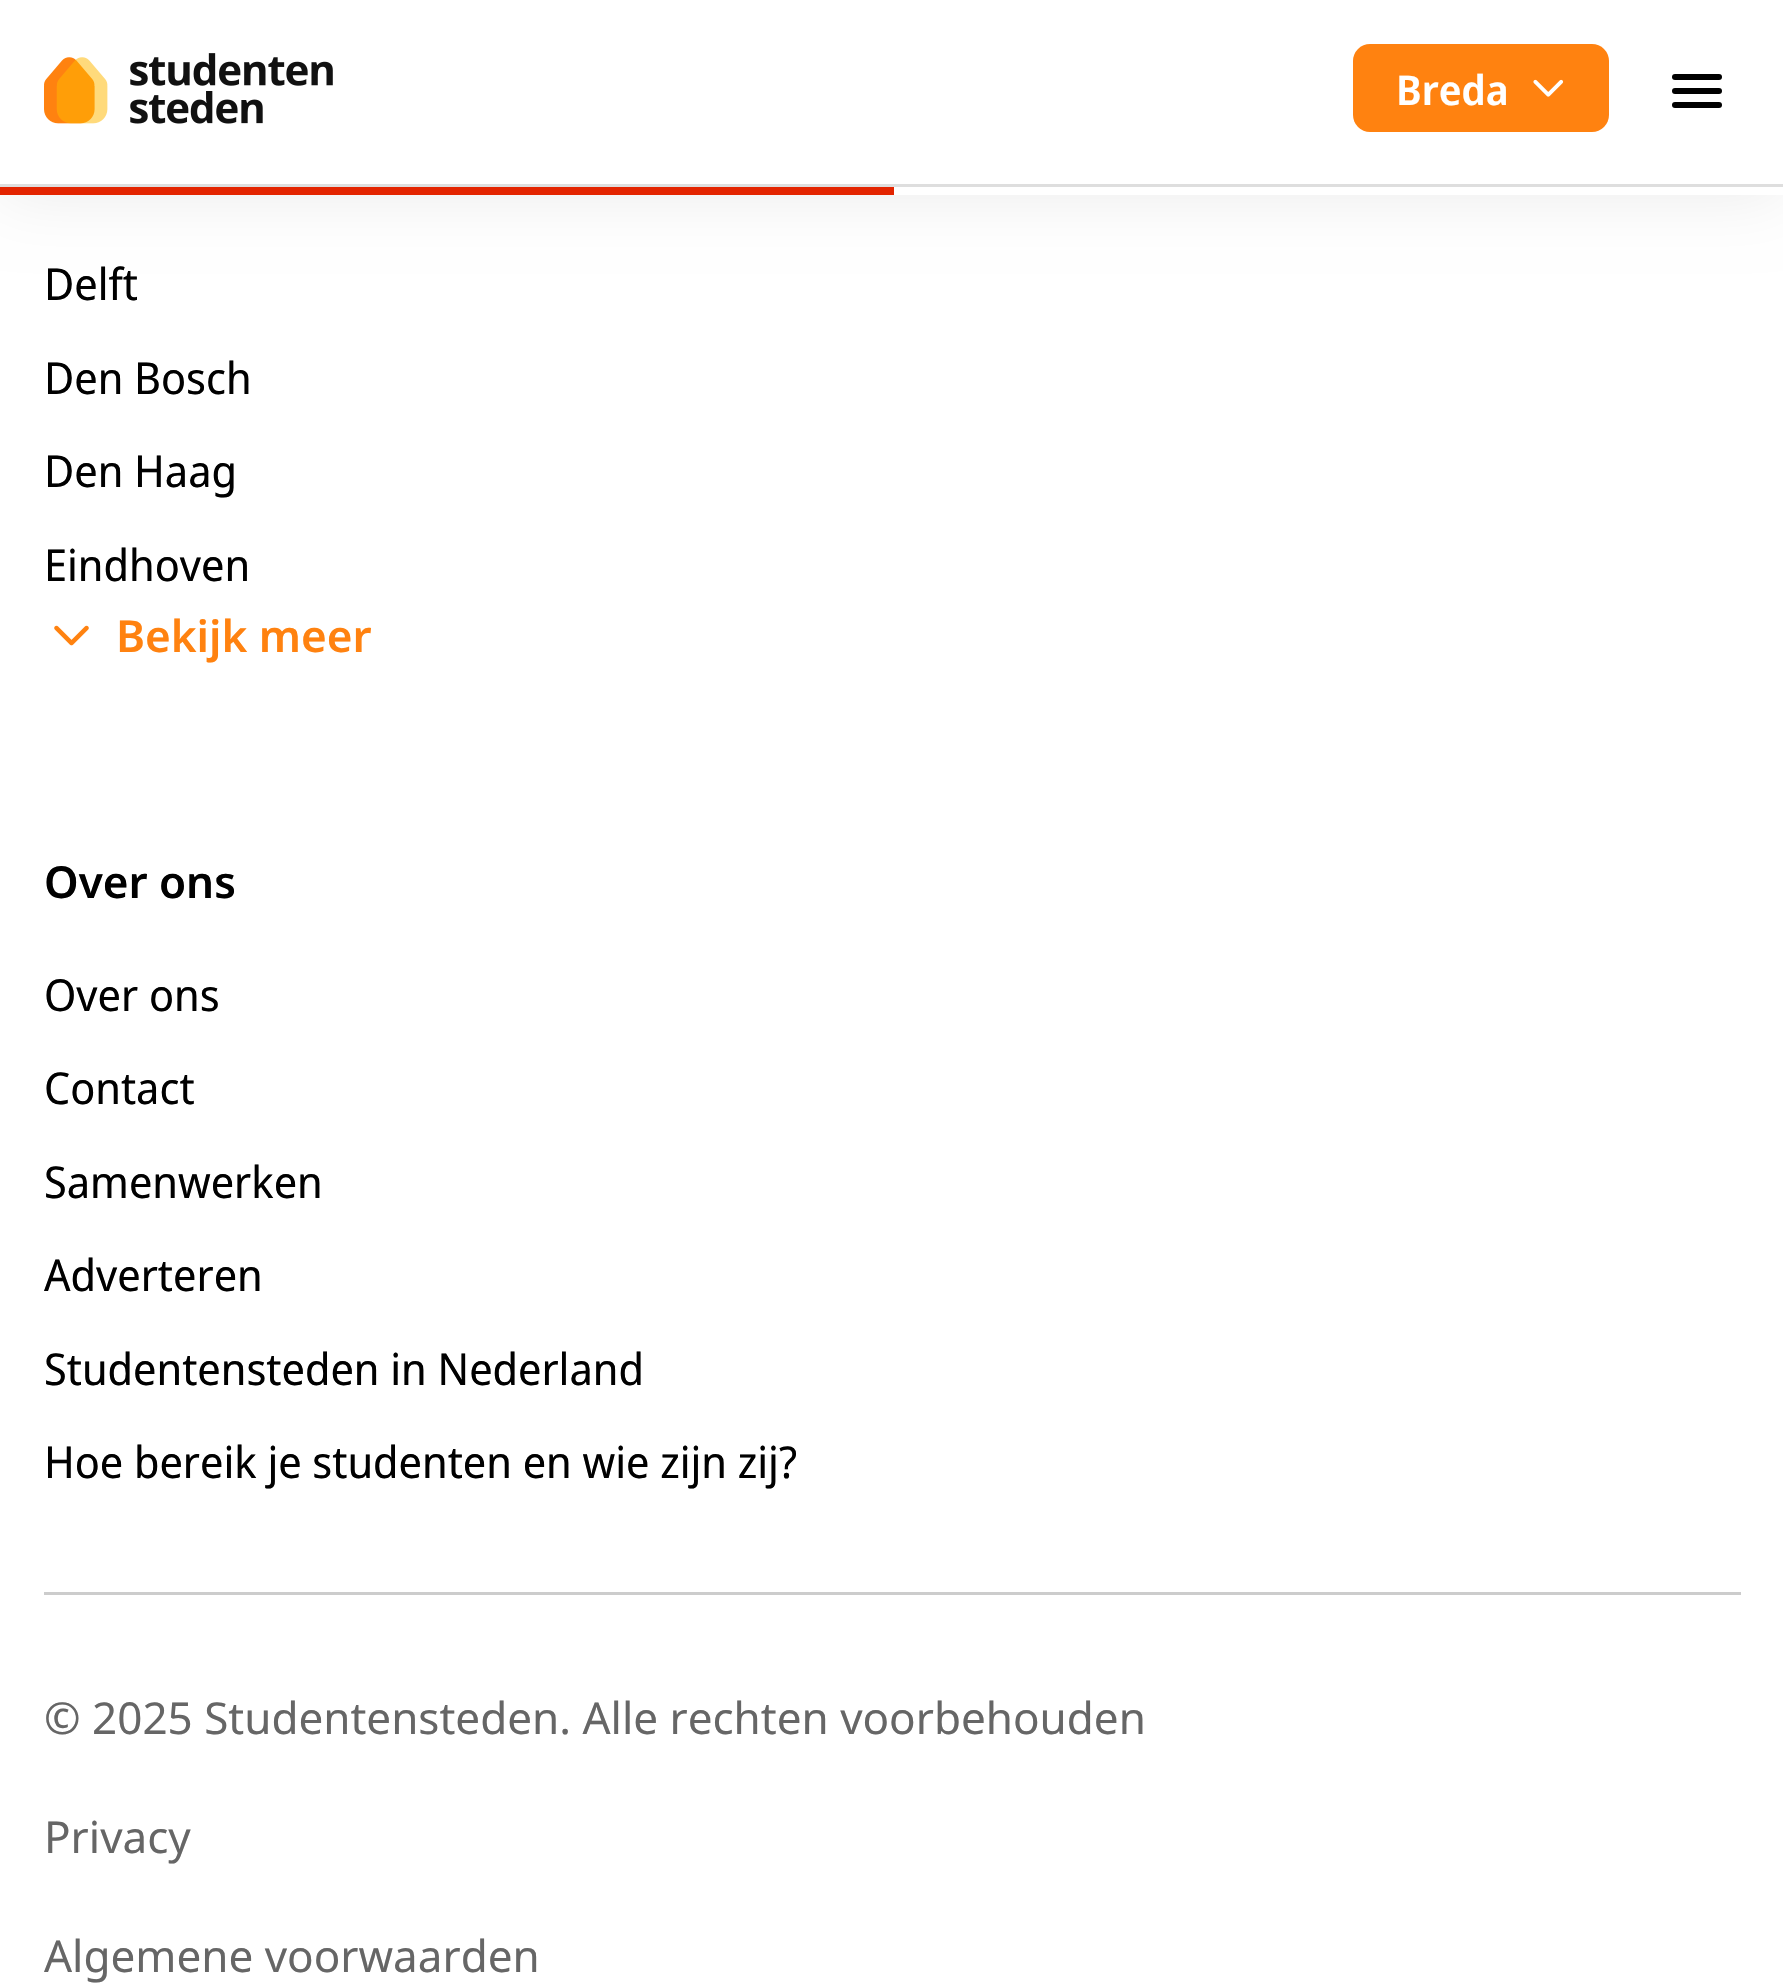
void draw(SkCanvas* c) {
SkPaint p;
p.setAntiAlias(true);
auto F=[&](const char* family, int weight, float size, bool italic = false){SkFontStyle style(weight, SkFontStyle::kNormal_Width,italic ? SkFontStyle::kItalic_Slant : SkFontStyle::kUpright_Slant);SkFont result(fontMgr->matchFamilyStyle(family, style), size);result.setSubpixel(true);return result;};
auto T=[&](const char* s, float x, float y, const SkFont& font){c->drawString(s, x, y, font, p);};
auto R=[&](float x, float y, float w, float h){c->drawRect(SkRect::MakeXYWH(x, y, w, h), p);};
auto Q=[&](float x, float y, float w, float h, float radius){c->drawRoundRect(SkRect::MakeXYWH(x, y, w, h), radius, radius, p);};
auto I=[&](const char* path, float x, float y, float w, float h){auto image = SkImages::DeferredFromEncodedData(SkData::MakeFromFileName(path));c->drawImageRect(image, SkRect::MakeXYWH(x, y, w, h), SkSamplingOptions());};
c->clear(0xffffffff);
p.setColor(0x14000000);
p.setMaskFilter(SkMaskFilter::MakeBlur(kNormal_SkBlurStyle, 33));
c->drawRect(SkRect::MakeXYWH(0,11,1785,184),p);
p.setMaskFilter(nullptr);
p.setColor(0xffffffff);
R(0,0,1783,184);
I("1.png",44,53,289,71);
p.setColor(0xffff8210);
Q(1353,44,256,88,17);
auto f1 = F("Noto Sans Display",600,41);
p.setColor(0xffffffff);
T("Breda",1396,105,f1);
I("2.png",1533,79,31,18);
p.setColor(0xff000000);
Q(1672,74,50,6,3);
Q(1672,88,50,6,3);
Q(1672,102,50,6,3);
p.setColor(0xffdedede);
R(0,184,1783,3);
p.setColor(0xffe32400);
R(0,187,894,8);
p.setColor(0xffffffff);
R(894,187,889,8);
auto f2 = F("Noto Sans Display",400,44);
p.setColor(0xff000000);
T("Delft",44,300,f2);
T("Den Bosch",44,394,f2);
T("Den Haag",44,487,f2);
T("Eindhoven",44,581,f2);
I("3.png",54,625,35,21);
auto f3 = F("Noto Sans",600,44);
p.setColor(0xffff8210);
T("Bekijk meer",116,652,f3);
p.setColor(0xff000000);
T("Over ons",44,898,f3);
T("Over ons",44,1011,f2);
T("Contact",44,1104,f2);
T("Samenwerken",44,1198,f2);
T("Adverteren",44,1291,f2);
T("Studentensteden in Nederland",44,1385,f2);
T("Hoe bereik je studenten en wie zijn zij?",44,1478,f2);
p.setColor(0xffcccccc);
R(44,1592,1697,3);
auto f4 = F("Noto Sans",400,44);
p.setColor(0xff666666);
T("© 2025 Studentensteden. Alle rechten voorbehouden",44,1734,f4);
T("Privacy",44,1853,f4);
T("Algemene voorwaarden",44,1972,f4);
}
